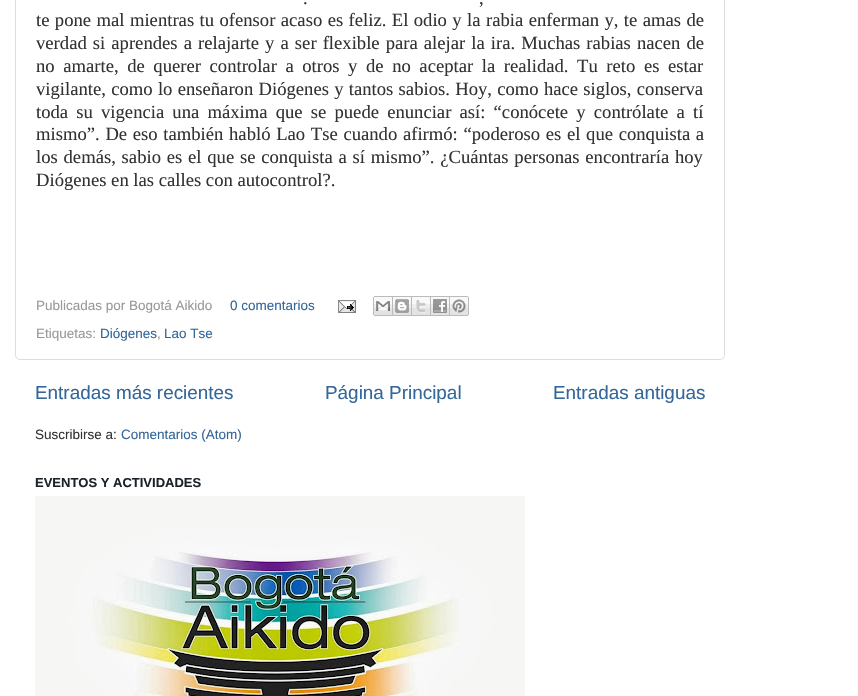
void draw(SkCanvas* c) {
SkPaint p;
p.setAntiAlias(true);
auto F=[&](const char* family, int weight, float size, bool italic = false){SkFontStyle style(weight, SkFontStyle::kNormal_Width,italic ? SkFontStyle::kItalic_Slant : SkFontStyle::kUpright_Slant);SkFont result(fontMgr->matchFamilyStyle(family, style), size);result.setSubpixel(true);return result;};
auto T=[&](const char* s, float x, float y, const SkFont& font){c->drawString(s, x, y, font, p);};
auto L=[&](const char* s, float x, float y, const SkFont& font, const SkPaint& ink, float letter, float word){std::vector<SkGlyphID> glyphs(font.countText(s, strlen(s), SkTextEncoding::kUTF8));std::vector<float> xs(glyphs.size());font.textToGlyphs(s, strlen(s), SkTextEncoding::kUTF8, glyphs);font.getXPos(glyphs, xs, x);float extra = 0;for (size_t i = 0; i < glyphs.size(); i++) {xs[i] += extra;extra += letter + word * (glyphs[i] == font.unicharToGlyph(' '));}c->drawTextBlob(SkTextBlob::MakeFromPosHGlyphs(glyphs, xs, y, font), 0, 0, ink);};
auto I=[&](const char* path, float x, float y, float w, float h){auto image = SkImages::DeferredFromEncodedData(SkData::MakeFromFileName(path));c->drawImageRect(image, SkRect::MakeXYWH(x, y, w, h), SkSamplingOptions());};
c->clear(0xffffffff);
p.setStroke(true);
p.setStrokeWidth(1);
p.setColor(0xffdddddd);
c->drawRoundRect(SkRect::MakeXYWH(15.5,-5.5,709,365),4.5,4.5,p);
auto f1 = F("Liberation Serif",400,18.65);
p.setStroke(false);
p.setColor(0xff333333);
T(".",303,4,f1);
T(",",479,4,f1);
L("te pone mal mientras tu ofensor acaso es feliz. El odio y la rabia enferman y, te amas de",36,26,f1,p,0,.75);
L("verdad si aprendes a relajarte y a ser flexible para alejar la ira. Muchas rabias nacen de",36,49,f1,p,0,1.4);
L("no amarte, de querer controlar a otros y de no aceptar la realidad. Tu reto es estar",36,72,f1,p,0,3.9);
L("vigilante, como lo enseñaron Diógenes y tantos sabios. Hoy, como hace siglos, conserva",36,95,f1,p,0,.6);
L("toda su vigencia una máxima que se puede enunciar así: “conócete y contrólate a tí",36,118,f1,p,0,3.5);
L("mismo”. De eso también habló Lao Tse cuando afirmó: “poderoso es el que conquista a",36,140,f1,p,0,1);
L("los demás, sabio es el que se conquista a sí mismo”. ¿Cuántas personas encontraría hoy",36,163,f1,p,0,1.1);
T("Diógenes en las calles con autocontrol?.",36,186,f1);
auto f2 = F("Liberation Sans",400,13.5);
p.setColor(0xff999999);
T("Publicadas por Bogotá Aikido",36,310,f2);
p.setColor(0xff336699);
T("0 comentarios",230,310,f2);
I("1.png",338,300,18,13);
I("2.png",373,296,20,20);
I("3.png",393,296,19,20);
I("4.png",412,296,19,20);
I("5.png",431,296,19,20);
I("6.png",450,296,19,20);
p.setColor(0xff999999);
T("Etiquetas:",36,338,f2);
p.setColor(0xff336699);
T("Diógenes",100,338,f2);
p.setColor(0xff999999);
T(",",157,338,f2);
p.setColor(0xff336699);
T("Lao Tse",164,338,f2);
auto f3 = F("Liberation Sans",400,18.9);
T("Entradas más recientes",35,399,f3);
T("Página Principal",325,399,f3);
T("Entradas antiguas",553,399,f3);
p.setColor(0xff333333);
T("Suscribirse a:",35,439,f2);
p.setColor(0xff336699);
T("Comentarios (Atom)",121,439,f2);
auto f4 = F("Liberation Sans",700,13);
p.setColor(0xff1a222a);
T("EVENTOS Y ACTIVIDADES",35,487,f4);
I("7.png",35,496,490,200);
}
